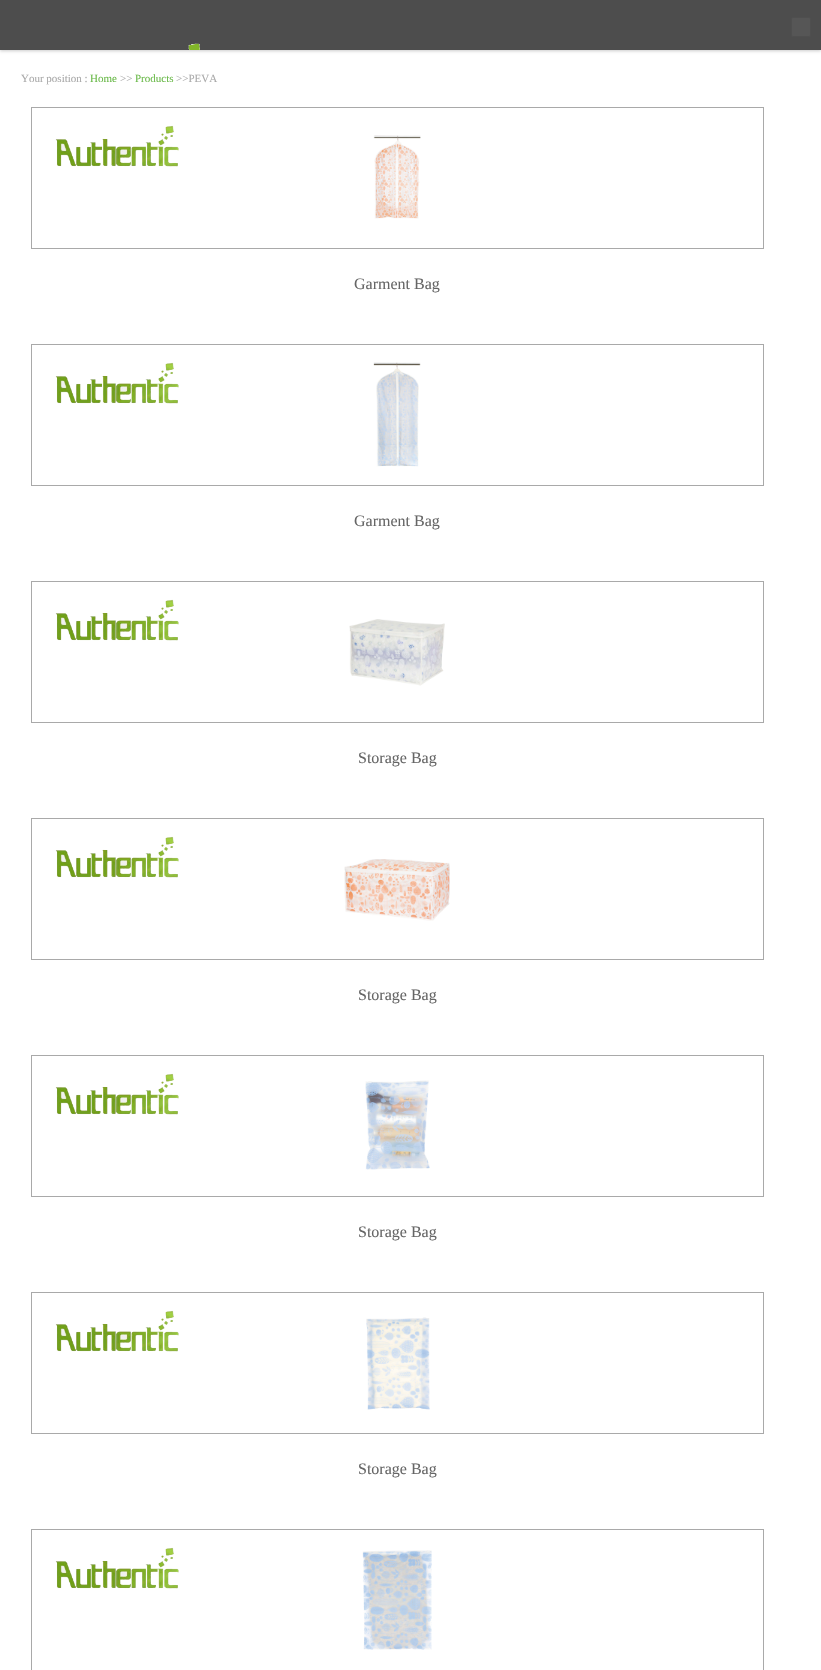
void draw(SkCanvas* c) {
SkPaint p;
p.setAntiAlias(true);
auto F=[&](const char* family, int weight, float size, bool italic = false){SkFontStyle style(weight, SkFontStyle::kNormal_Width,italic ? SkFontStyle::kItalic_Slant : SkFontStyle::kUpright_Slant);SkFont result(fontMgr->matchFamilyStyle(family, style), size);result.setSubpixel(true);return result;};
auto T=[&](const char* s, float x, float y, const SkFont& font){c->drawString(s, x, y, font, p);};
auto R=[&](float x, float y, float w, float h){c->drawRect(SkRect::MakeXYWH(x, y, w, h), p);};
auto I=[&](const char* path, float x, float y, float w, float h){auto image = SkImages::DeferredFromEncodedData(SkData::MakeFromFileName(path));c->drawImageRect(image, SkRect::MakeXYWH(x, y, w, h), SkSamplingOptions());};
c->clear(0xffffffff);
p.setColor(0xffcccccc);
p.setMaskFilter(SkMaskFilter::MakeBlur(kNormal_SkBlurStyle, 1.5));
c->drawRect(SkRect::MakeXYWH(0,1,821,50),p);
p.setMaskFilter(nullptr);
p.setColor(0xff4d4d4d);
R(0,0,821,50);
p.setColor(0xff565656);
c->drawRoundRect(SkRect::MakeXYWH(791.5,17.5,19,19),1.5,1.5,p);
p.setStroke(true);
p.setStrokeWidth(1);
p.setColor(0xff4f4f4f);
c->drawRoundRect(SkRect::MakeXYWH(791.5,17.5,19,19),1.5,1.5,p);
I("1.png",188,43,12,7);
auto f1 = F("Liberation Serif",400,11);
p.setStroke(false);
p.setColor(0xffa9a9a9);
T("Your position :",21,82,f1);
p.setColor(0xff69b948);
T("Home",90,82,f1);
p.setColor(0xffa9a9a9);
T(">>",120,82,f1);
p.setColor(0xff69b948);
T("Products",135,82,f1);
p.setColor(0xffa9a9a9);
T(">>PEVA",176,82,f1);
I("2.png",55,125,124,42);
p.setStroke(true);
c->drawRect(SkRect::MakeXYWH(31.5,107.5,732,141),p);
I("3.png",373,135,48,84);
auto f2 = F("Liberation Serif",400,16);
p.setStroke(false);
p.setColor(0xff666666);
T("Garment Bag",354,289,f2);
I("2.png",55,362,124,42);
p.setStroke(true);
p.setColor(0xffa9a9a9);
c->drawRect(SkRect::MakeXYWH(31.5,344.5,732,141),p);
I("4.png",373,362,48,105);
p.setStroke(false);
p.setColor(0xff666666);
T("Garment Bag",354,526,f2);
I("5.png",55,599,124,42);
p.setStroke(true);
p.setColor(0xffa9a9a9);
c->drawRect(SkRect::MakeXYWH(31.5,581.5,732,141),p);
I("6.png",349,619,96,67);
p.setStroke(false);
p.setColor(0xff666666);
T("Storage Bag",358,763,f2);
I("2.png",55,836,124,42);
p.setStroke(true);
p.setColor(0xffa9a9a9);
c->drawRect(SkRect::MakeXYWH(31.5,818.5,732,141),p);
I("7.png",344,859,106,62);
p.setStroke(false);
p.setColor(0xff666666);
T("Storage Bag",358,1000,f2);
I("2.png",55,1073,124,42);
p.setStroke(true);
p.setColor(0xffa9a9a9);
c->drawRect(SkRect::MakeXYWH(31.5,1055.5,732,141),p);
I("8.png",365,1080,65,90);
p.setStroke(false);
p.setColor(0xff666666);
T("Storage Bag",358,1237,f2);
I("5.png",55,1310,124,42);
p.setStroke(true);
p.setColor(0xffa9a9a9);
c->drawRect(SkRect::MakeXYWH(31.5,1292.5,732,141),p);
I("9.png",366,1317,64,93);
p.setStroke(false);
p.setColor(0xff666666);
T("Storage Bag",358,1474,f2);
I("2.png",55,1547,124,42);
p.setStroke(true);
p.setColor(0xffa9a9a9);
c->drawRect(SkRect::MakeXYWH(31.5,1529.5,732,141),p);
I("10.png",362,1550,70,100);
}
